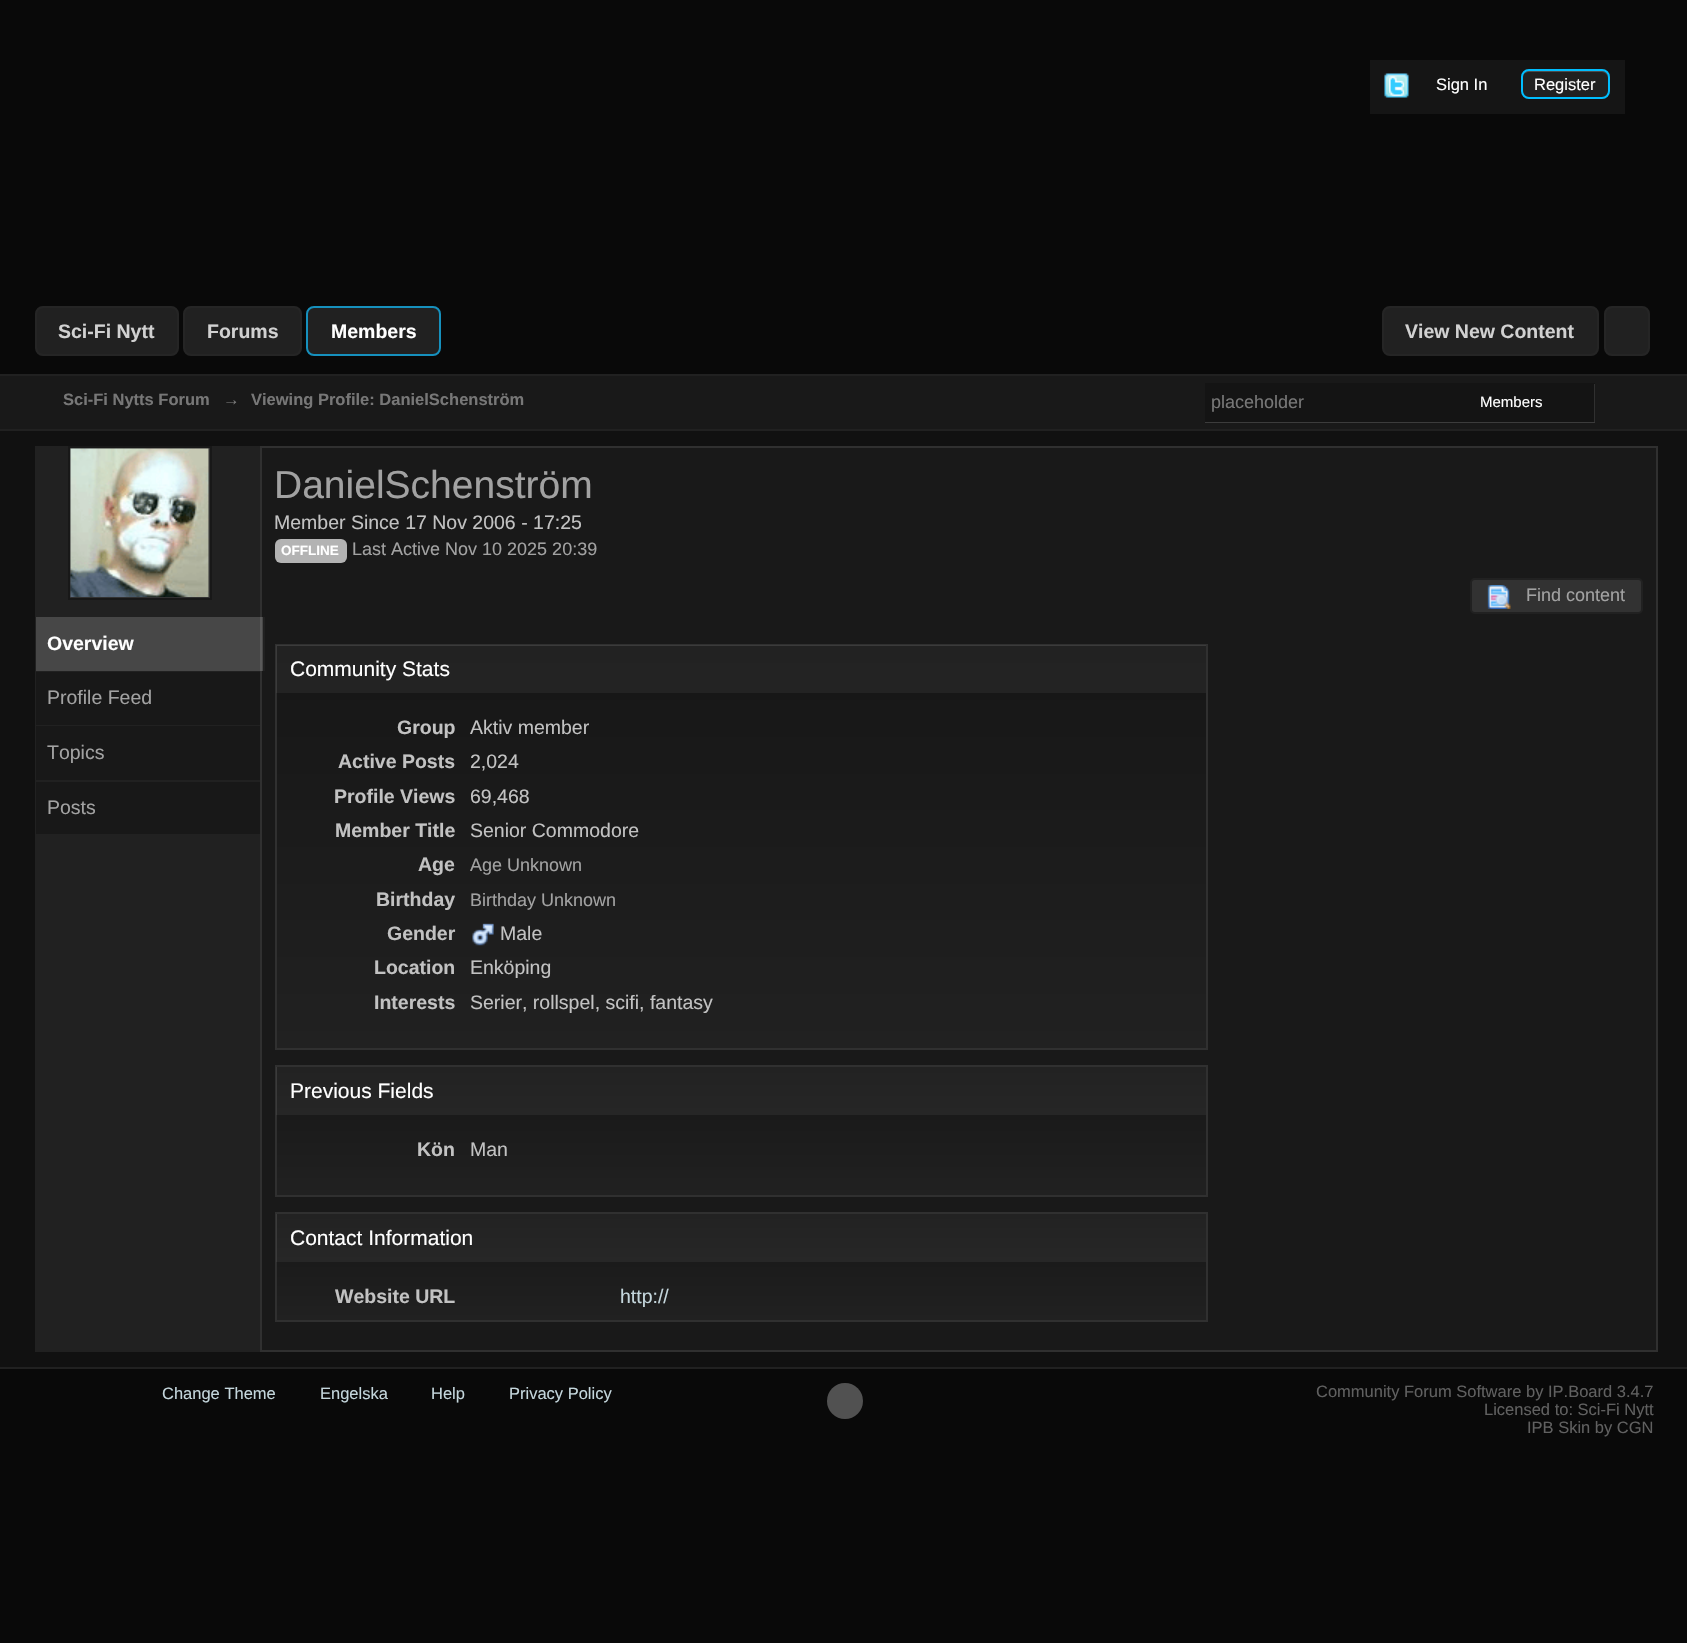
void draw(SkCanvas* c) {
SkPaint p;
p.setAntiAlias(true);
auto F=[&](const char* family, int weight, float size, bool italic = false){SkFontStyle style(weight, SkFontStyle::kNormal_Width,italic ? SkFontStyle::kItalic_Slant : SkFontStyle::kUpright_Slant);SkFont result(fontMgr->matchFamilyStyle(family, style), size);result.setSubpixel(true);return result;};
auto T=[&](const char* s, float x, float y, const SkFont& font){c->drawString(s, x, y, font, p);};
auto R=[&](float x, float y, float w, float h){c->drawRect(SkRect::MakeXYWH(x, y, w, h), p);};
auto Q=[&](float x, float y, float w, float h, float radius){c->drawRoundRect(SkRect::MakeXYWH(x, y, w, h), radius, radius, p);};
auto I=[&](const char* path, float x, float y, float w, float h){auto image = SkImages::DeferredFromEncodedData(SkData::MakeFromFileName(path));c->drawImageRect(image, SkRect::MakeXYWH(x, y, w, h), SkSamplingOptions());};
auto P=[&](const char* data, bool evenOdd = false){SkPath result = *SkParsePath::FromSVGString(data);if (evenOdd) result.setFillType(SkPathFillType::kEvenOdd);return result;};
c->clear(0xff090909);
p.setColor(0xff151515);
R(1370,60,255,54);
I("1.png",1384,73,25,25);
auto f1 = F("Liberation Sans",400,16.5);
p.setColor(0xffffffff);
T("Sign In",1436,90,f1);
p.setColor(0xff212121);
Q(1521,69,89,30,8);
p.setColor(0xff4d4d4d);
c->drawPath(P("M1528 72h74c3 0 6 3 6 6v-1c0-3-3-6-6-6h-73c-2 0-4 1-5 3c1-1 3-2 4-2z"),p);
p.setStroke(true);
p.setStrokeWidth(2);
p.setColor(0xff00beff);
c->drawRoundRect(SkRect::MakeXYWH(1522,70,87,28),7,7,p);
p.setStroke(false);
p.setColor(0xffffffff);
T("Register",1534,90,f1);
p.setColor(0xff212121);
c->drawRoundRect(SkRect::MakeXYWH(36,307,142,48),7,7,p);
p.setStroke(true);
p.setColor(0xff252525);
c->drawRoundRect(SkRect::MakeXYWH(36,307,142,48),7,7,p);
auto f2 = F("Liberation Sans",700,19.5);
p.setStroke(false);
p.setColor(0xffd1d1d1);
T("Sci-Fi Nytt",58,338,f2);
p.setColor(0xff212121);
c->drawRoundRect(SkRect::MakeXYWH(184,307,117,48),7,7,p);
p.setStroke(true);
p.setColor(0xff252525);
c->drawRoundRect(SkRect::MakeXYWH(184,307,117,48),7,7,p);
p.setStroke(false);
p.setColor(0xffd1d1d1);
T("Forums",207,338,f2);
p.setColor(0xff212121);
c->drawRoundRect(SkRect::MakeXYWH(307,307,133,48),7,7,p);
p.setStroke(true);
p.setColor(0xff1690bd);
c->drawRoundRect(SkRect::MakeXYWH(307,307,133,48),7,7,p);
p.setStroke(false);
p.setColor(0xffffffff);
T("Members",331,338,f2);
p.setColor(0xff212121);
c->drawRoundRect(SkRect::MakeXYWH(1383,307,215,48),7,7,p);
p.setStroke(true);
p.setColor(0xff252525);
c->drawRoundRect(SkRect::MakeXYWH(1383,307,215,48),7,7,p);
p.setStroke(false);
p.setColor(0xffd1d1d1);
T("View New Content",1405,338,f2);
p.setColor(0xff212121);
c->drawRoundRect(SkRect::MakeXYWH(1605,307,44,48),7,7,p);
p.setStroke(true);
p.setColor(0xff252525);
c->drawRoundRect(SkRect::MakeXYWH(1605,307,44,48),7,7,p);
p.setStroke(false);
p.setColor(0xff191919);
R(0,376,1687,53);
p.setColor(0xff212121);
R(0,374,1687,2);
R(0,429,1687,2);
auto f3 = F("Liberation Sans",700,16.5);
p.setColor(0xff777777);
T("Sci-Fi Nytts Forum",63,405,f3);
T("→",223,405,f3);
T("Viewing Profile: DanielSchenström",251,405,f3);
p.setColor(0xff3c3c3c);
c->drawPath(P("M1205 422v1h390v-39h-1v38z"),p);
p.setColor(0x33000000);
R(1205,383,390,39);
auto f4 = F("Liberation Sans",400,18);
p.setColor(0xff777777);
T("placeholder",1211,408,f4);
auto f5 = F("Liberation Sans",400,15);
p.setColor(0xffffffff);
T("Members",1480,407,f5);
p.setColor(0xff111111);
R(0,431,1687,936);
p.setColor(0xff212121);
R(0,1367,1687,2);
R(35,446,225,906);
p.setColor(0xff323232);
c->drawRect(SkRect::MakeXYWH(69,447,142,152),p);
p.setStroke(true);
p.setColor(0xff181818);
c->drawRect(SkRect::MakeXYWH(69,447,142,152),p);
I("2.png",70,448,139,149);
p.setStroke(false);
R(36,617,224,54);
p.setColor(0xff191919);
c->drawRect(SkRect::MakeXYWH(261,447,1396,904),p);
p.setStroke(true);
p.setColor(0xff303030);
c->drawRect(SkRect::MakeXYWH(261,447,1396,904),p);
p.setStroke(false);
p.setColor(0x33ffffff);
R(36,617,227,54);
p.setColor(0xff212121);
R(263,617,2,54);
p.setColor(0xffffffff);
T("Overview",47,650,f2);
p.setColor(0xff181818);
R(36,672,224,53);
auto f6 = F("Liberation Sans",400,19.5);
p.setColor(0xffa2a2a2);
T("Profile Feed",47,704,f6);
p.setColor(0xff181818);
R(36,726,224,54);
p.setColor(0xffa2a2a2);
T("Topics",47,759,f6);
p.setColor(0xff181818);
R(36,782,224,52);
p.setColor(0xffa2a2a2);
T("Posts",47,814,f6);
auto f7 = F("Liberation Sans",400,39);
T("DanielSchenström",274,498,f7);
p.setColor(0xffc2c2c2);
T("Member Since 17 Nov 2006 - 17:25",274,529,f6);
p.setColor(0xffb3b3b3);
Q(275,539,72,24,6);
auto f8 = F("Liberation Sans",700,13.5);
p.setColor(0xffffffff);
T("OFFLINE",281,555,f8);
p.setColor(0xffa2a2a2);
T("Last Active Nov 10 2025 20:39",352,555,f4);
p.setColor(0xff323232);
c->drawRoundRect(SkRect::MakeXYWH(1471,579,171,34),4,4,p);
p.setStroke(true);
p.setColor(0xff212121);
c->drawRoundRect(SkRect::MakeXYWH(1471,579,171,34),4,4,p);
I("3.png",1487,585,24,24);
p.setStroke(false);
p.setColor(0xffa2a2a2);
T("Find content",1526,601,f4);
{
const SkColor colors[] = {0xff161616,0xff212121};
const float stops[] = {0,1};
const SkPoint ends[] = {{276,645}, {276,1049}};
p.setShader(SkGradientShader::MakeLinear(ends, colors, stops, 2, SkTileMode::kClamp));
p.setAlpha(255);
}
R(277,646,929,402);
p.setStroke(true);
p.setShader(nullptr);
p.setColor(0xff303030);
c->drawRect(SkRect::MakeXYWH(276,645,931,404),p);
p.setStroke(false);
p.setColor(0x0dffffff);
R(276,645,930,48);
auto f9 = F("Liberation Sans",400,21);
p.setColor(0xffffffff);
T("Community Stats",290,676,f9);
p.setColor(0xffc2c2c2);
T("Group",397,734,f2);
T("Aktiv member",470,734,f6);
T("Active Posts",338,768,f2);
T("2,024",470,768,f6);
T("Profile Views",334,803,f2);
T("69,468",470,803,f6);
T("Member Title",335,837,f2);
T("Senior Commodore",470,837,f6);
T("Age",418,871,f2);
p.setColor(0xffa2a2a2);
T("Age Unknown",470,871,f4);
p.setColor(0xffc2c2c2);
T("Birthday",376,906,f2);
p.setColor(0xffa2a2a2);
T("Birthday Unknown",470,906,f4);
p.setColor(0xffc2c2c2);
T("Gender",387,940,f2);
I("4.png",472,923,22,23);
T("Male",500,940,f6);
T("Location",374,974,f2);
T("Enköping",470,974,f6);
T("Interests",374,1009,f2);
T("Serier, rollspel, scifi, fantasy",470,1009,f6);
{
const SkColor colors[] = {0xff161616,0xff212121};
const float stops[] = {0,1};
const SkPoint ends[] = {{276,1067}, {276,1196}};
p.setShader(SkGradientShader::MakeLinear(ends, colors, stops, 2, SkTileMode::kClamp));
p.setAlpha(255);
}
R(277,1067,929,128);
p.setStroke(true);
p.setShader(nullptr);
p.setColor(0xff303030);
c->drawRect(SkRect::MakeXYWH(276,1066,931,130),p);
p.setStroke(false);
p.setColor(0x0dffffff);
R(276,1067,930,48);
p.setColor(0xffffffff);
T("Previous Fields",290,1098,f9);
p.setColor(0xffc2c2c2);
T("Kön",417,1156,f2);
T("Man",470,1156,f6);
{
const SkColor colors[] = {0xff161616,0xff212121};
const float stops[] = {0,1};
const SkPoint ends[] = {{276,1214}, {276,1320}};
p.setShader(SkGradientShader::MakeLinear(ends, colors, stops, 2, SkTileMode::kClamp));
p.setAlpha(255);
}
R(277,1214,929,106);
p.setStroke(true);
p.setShader(nullptr);
p.setColor(0xff303030);
c->drawRect(SkRect::MakeXYWH(276,1213,931,108),p);
p.setStroke(false);
p.setColor(0x0dffffff);
R(276,1214,930,48);
p.setColor(0xffffffff);
T("Contact Information",290,1245,f9);
p.setColor(0xffc2c2c2);
T("Website URL",335,1303,f2);
p.setColor(0xffc4d6dc);
T("http://",620,1303,f6);
T("Change Theme",162,1399,f1);
T("Engelska",320,1399,f1);
T("Help",431,1399,f1);
T("Privacy Policy",509,1399,f1);
p.setColor(0xff515151);
c->drawCircle(845,1401,18,p);
p.setColor(0xff606060);
T("Community Forum Software by IP.Board 3.4.7",1316,1397,f1);
T("Licensed to: Sci-Fi Nytt",1484,1415,f1);
T("IPB Skin by CGN",1527,1433,f1);
}
